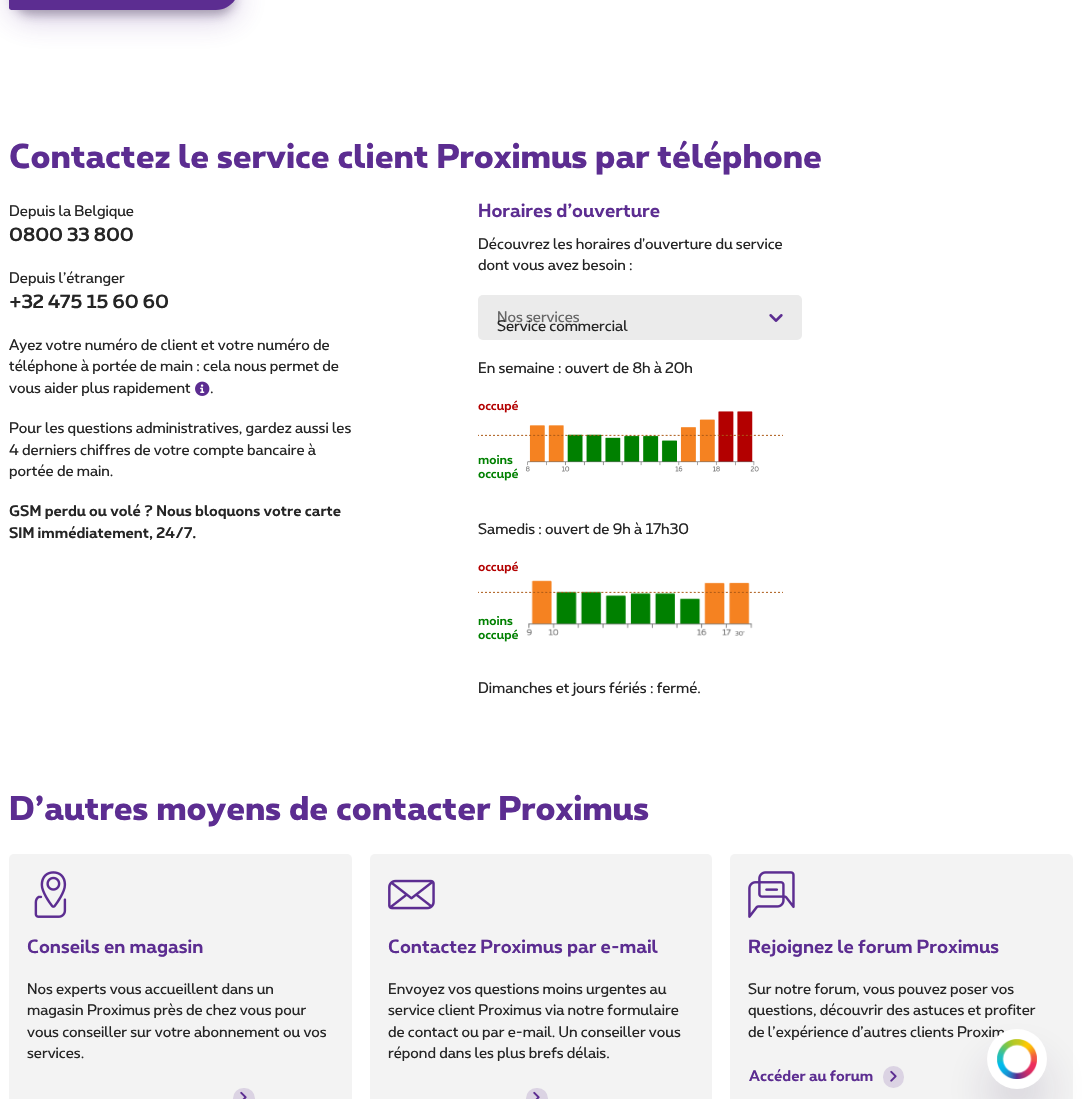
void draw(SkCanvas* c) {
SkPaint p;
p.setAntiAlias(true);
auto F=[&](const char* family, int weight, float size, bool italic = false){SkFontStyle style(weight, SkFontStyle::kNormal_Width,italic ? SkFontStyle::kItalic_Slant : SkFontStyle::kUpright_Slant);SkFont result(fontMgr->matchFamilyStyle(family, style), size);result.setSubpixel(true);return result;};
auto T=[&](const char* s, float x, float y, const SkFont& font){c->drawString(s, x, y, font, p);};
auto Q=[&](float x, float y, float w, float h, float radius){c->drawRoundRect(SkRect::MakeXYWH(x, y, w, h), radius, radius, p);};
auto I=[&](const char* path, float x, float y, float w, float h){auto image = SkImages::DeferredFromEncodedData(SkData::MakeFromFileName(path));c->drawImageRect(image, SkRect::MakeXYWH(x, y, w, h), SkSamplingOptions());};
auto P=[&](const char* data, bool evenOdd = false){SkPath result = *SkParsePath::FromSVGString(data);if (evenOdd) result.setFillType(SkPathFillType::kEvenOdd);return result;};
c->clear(0xffffffff);
p.setColor(0x3d5c2d91);
p.setMaskFilter(SkMaskFilter::MakeBlur(kNormal_SkBlurStyle, 15));
c->drawRoundRect(SkRect::MakeXYWH(9,-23,230,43),23,23,p);
p.setMaskFilter(nullptr);
p.setColor(0x29391d58);
p.setMaskFilter(SkMaskFilter::MakeBlur(kNormal_SkBlurStyle, 5));
c->drawRoundRect(SkRect::MakeXYWH(11,-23,226,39),21,21,p);
p.setMaskFilter(nullptr);
p.setColor(0x29000000);
p.setMaskFilter(SkMaskFilter::MakeBlur(kNormal_SkBlurStyle, 5));
c->drawRoundRect(SkRect::MakeXYWH(17,-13,214,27),15,15,p);
p.setMaskFilter(nullptr);
p.setColor(0xff5c2d91);
c->drawPath(P("M11.5-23h225c1.5 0 2.5 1 2.5 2.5v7.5c0 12.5-10.5 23-23 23h-204.5c-1.5 0-2.5-1-2.5-2.5v-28c0-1.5 1-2.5 2.5-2.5z"),p);
auto f1 = F("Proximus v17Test",800,32.45);
T("Contactez le service client Proximus par téléphone",9,168,f1);
auto f2 = F("Proximus v17Test",400,14.4);
p.setColor(0xff252525);
T("Depuis la Belgique",9,216,f2);
auto f3 = F("Proximus v17Test",700,18);
T("0800 33 800",9,241,f3);
T("Depuis l’étranger",9,283,f2);
T("+32 475 15 60 60",9,308,f3);
T("Ayez votre numéro de client et votre numéro de",9,350,f2);
T("téléphone à portée de main : cela nous permet de",9,371,f2);
T("vous aider plus rapidement",9,393,f2);
I("1.png",195,381,15,15);
T(".",210,393,f2);
T("Pour les questions administratives, gardez aussi les",9,433,f2);
T("4 derniers chiffres de votre compte bancaire à",9,455,f2);
T("portée de main.",9,476,f2);
auto f4 = F("Proximus v17Test",700,14.4);
T("GSM perdu ou volé ? Nous bloquons votre carte",9,516,f4);
T("SIM immédiatement, 24/7.",9,538,f4);
p.setColor(0xff5c2d91);
T("Horaires d’ouverture",478,217,f3);
p.setColor(0xff252525);
T("Découvrez les horaires d'ouverture du service",478,249,f2);
T("dont vous avez besoin :",478,270,f2);
p.setColor(0xffebebeb);
Q(478,295,324,45,5);
p.setColor(0xff666666);
T("Nos services",497,322,f2);
I("2.png",769,314,14,8);
p.setColor(0xff252525);
T("Service commercial",497,331,f2);
T("En semaine : ouvert de 8h à 20h",478,373,f2);
I("3.png",478,400,305,81);
T("Samedis : ouvert de 9h à 17h30",478,534,f2);
I("4.png",478,561,305,81);
T("Dimanches et jours fériés : fermé.",478,693,f2);
p.setColor(0xff5c2d91);
T("D’autres moyens de contacter Proximus",9,820,f1);
p.setColor(0xfff3f3f3);
Q(9,854,343,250,5);
I("5.png",34,871,33,47);
p.setColor(0xff5c2d91);
T("Conseils en magasin",27,953,f3);
p.setColor(0xff252525);
T("Nos experts vous accueillent dans un",27,994,f2);
T("magasin Proximus près de chez vous pour",27,1015,f2);
T("vous conseiller sur votre abonnement ou vos",27,1037,f2);
T("services.",27,1058,f2);
p.setColor(0xffdbd3e3);
Q(233,1088,22,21,10.5);
I("6.png",240,1091,7,8);
p.setColor(0xfff3f3f3);
Q(370,854,342,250,5);
I("7.png",388,879,47,31);
p.setColor(0xff5c2d91);
T("Contactez Proximus par e-mail",388,953,f3);
p.setColor(0xff252525);
T("Envoyez vos questions moins urgentes au",388,994,f2);
T("service client Proximus via notre formulaire",388,1015,f2);
T("de contact ou par e-mail. Un conseiller vous",388,1037,f2);
T("répond dans les plus brefs délais.",388,1058,f2);
p.setColor(0xffdbd3e3);
Q(526,1088,22,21,10.5);
I("6.png",533,1091,7,8);
p.setColor(0xfff3f3f3);
Q(730,854,343,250,5);
I("8.png",748,871,47,47);
p.setColor(0xff5c2d91);
T("Rejoignez le forum Proximus",748,953,f3);
p.setColor(0xff252525);
T("Sur notre forum, vous pouvez poser vos",748,994,f2);
T("questions, découvrir des astuces et profiter",748,1015,f2);
T("de l’expérience d’autres clients Proxim",748,1037,f2);
p.setColor(0xff5c2d91);
T("Accéder au forum",749,1081,f4);
p.setColor(0xffdbd3e3);
Q(883,1066,21,22,10.5);
I("9.png",890,1070,7,12);
p.setColor(0x292e1648);
p.setMaskFilter(SkMaskFilter::MakeBlur(kNormal_SkBlurStyle, 22.5));
c->drawRoundRect(SkRect::MakeXYWH(987,1059,60,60),30,30,p);
p.setMaskFilter(nullptr);
p.setColor(0xffffffff);
c->drawCircle(1017,1059,30,p);
I("10.png",997,1039,40,40);
}
